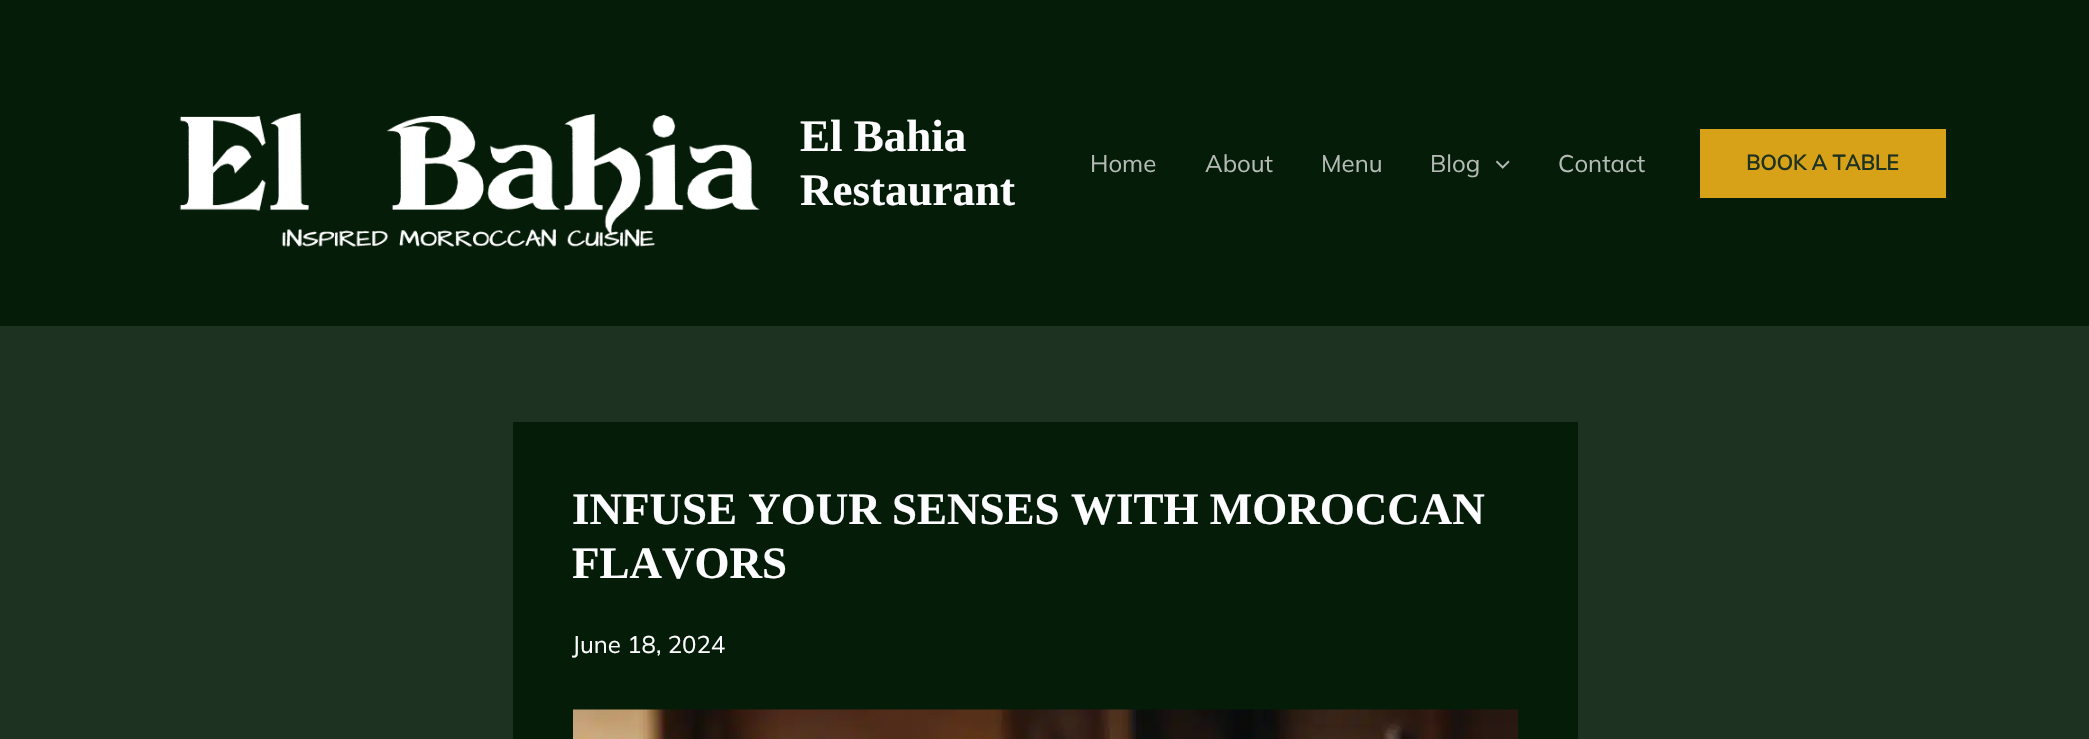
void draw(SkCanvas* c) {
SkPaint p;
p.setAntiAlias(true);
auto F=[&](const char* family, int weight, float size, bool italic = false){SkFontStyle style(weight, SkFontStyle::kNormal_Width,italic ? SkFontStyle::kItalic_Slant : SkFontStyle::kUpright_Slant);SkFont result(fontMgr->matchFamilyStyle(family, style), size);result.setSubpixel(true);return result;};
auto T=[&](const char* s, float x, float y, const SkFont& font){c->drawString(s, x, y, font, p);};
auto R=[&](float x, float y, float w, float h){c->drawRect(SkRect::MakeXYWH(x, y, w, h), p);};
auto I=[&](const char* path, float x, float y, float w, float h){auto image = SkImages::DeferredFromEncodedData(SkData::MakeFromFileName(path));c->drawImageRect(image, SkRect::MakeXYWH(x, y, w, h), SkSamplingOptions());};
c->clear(0xff1d3220);
p.setColor(0xff051c08);
R(0,0,2089,326);
I("1.png",179,113,581,135);
auto f1 = F("Liberation Serif",700,45);
p.setColor(0xfffdfdff);
T("El Bahia",800,151,f1);
T("Restaurant",800,205,f1);
auto f2 = F("Mulish",200,24);
p.setColor(0xffb4bbb5);
T("Home",1090,172,f2);
T("About",1205,172,f2);
T("Menu",1321,172,f2);
T("Blog",1430,172,f2);
I("2.png",1496,160,14,9);
T("Contact",1558,172,f2);
p.setColor(0xffd7a218);
R(1700,129,246,69);
auto f3 = F("Mulish",700,21);
p.setColor(0xff1d3220);
T("BOOK A TABLE",1746,170,f3);
p.setColor(0xff051c08);
R(513,422,1065,317);
p.setColor(0xfffdfdff);
T("INFUSE YOUR SENSES WITH MOROCCAN",572,524,f1);
T("FLAVORS",572,578,f1);
T("June 18, 2024",572,653,f2);
I("3.png",573,709,945,30);
}
